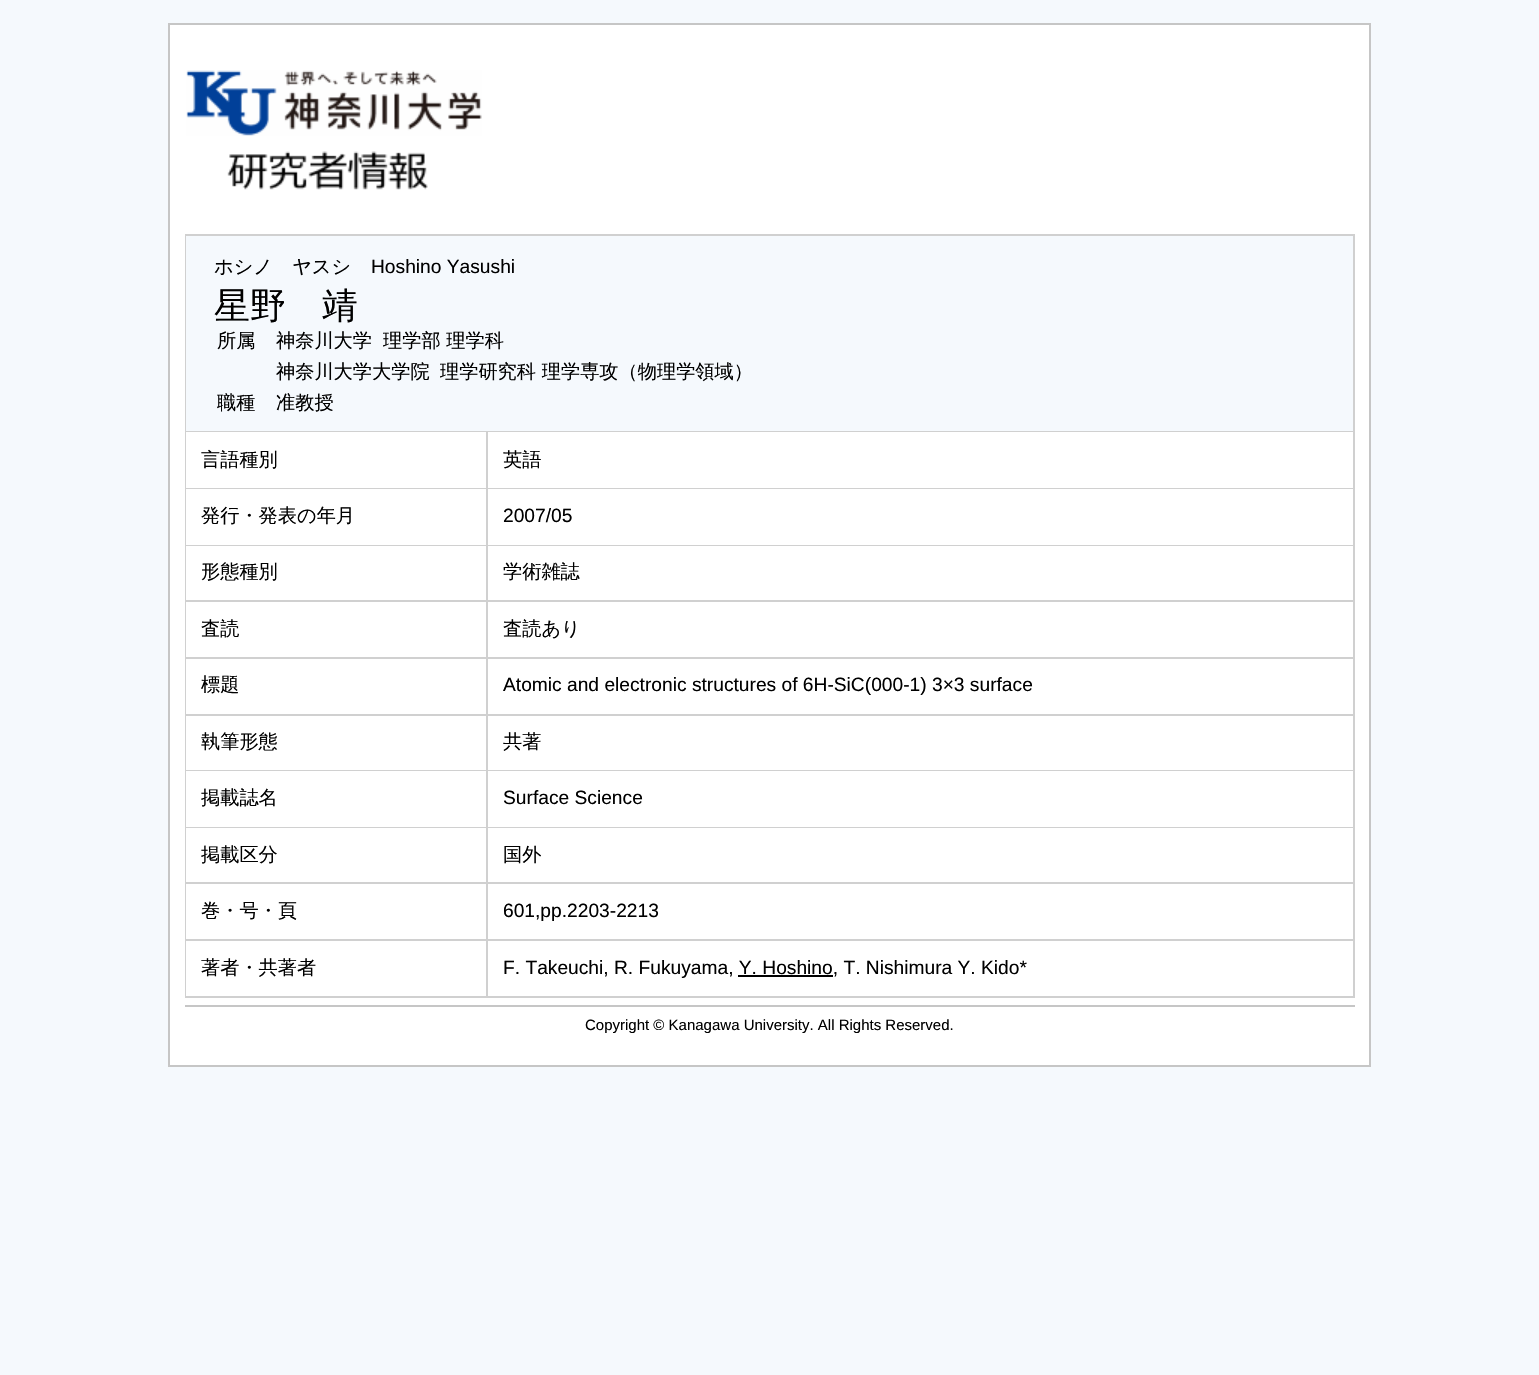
void draw(SkCanvas* c) {
SkPaint p;
p.setAntiAlias(true);
auto F=[&](const char* family, int weight, float size, bool italic = false){SkFontStyle style(weight, SkFontStyle::kNormal_Width,italic ? SkFontStyle::kItalic_Slant : SkFontStyle::kUpright_Slant);SkFont result(fontMgr->matchFamilyStyle(family, style), size);result.setSubpixel(true);return result;};
auto T=[&](const char* s, float x, float y, const SkFont& font){c->drawString(s, x, y, font, p);};
auto R=[&](float x, float y, float w, float h){c->drawRect(SkRect::MakeXYWH(x, y, w, h), p);};
auto I=[&](const char* path, float x, float y, float w, float h){auto image = SkImages::DeferredFromEncodedData(SkData::MakeFromFileName(path));c->drawImageRect(image, SkRect::MakeXYWH(x, y, w, h), SkSamplingOptions());};
c->clear(0xfff5f9fd);
p.setColor(0xffffffff);
c->drawRect(SkRect::MakeXYWH(169,24,1201,1042),p);
p.setStroke(true);
p.setStrokeWidth(2);
p.setColor(0xffc6c6c6);
c->drawRect(SkRect::MakeXYWH(169,24,1201,1042),p);
I("1.png",186,70,296,66);
I("2.png",227,151,201,39);
p.setStroke(false);
p.setColor(0xffd0d0d0);
R(185,234,1170,764);
p.setColor(0xfff5f9fd);
R(186,236,1167,195);
auto f1 = F("WenQuanYi Zen Hei",500,19.2);
p.setColor(0xff000000);
T("ホシノ　ヤスシ",214,273,f1);
auto f2 = F("Liberation Sans",400,19.2);
T("Hoshino Yasushi",371,273,f2);
auto f3 = F("WenQuanYi Zen Hei",500,36);
T("星野　靖",214,318,f3);
T("所属",217,347,f1);
T("神奈川大学",276,347,f1);
T("理学部 理学科",383,347,f1);
T("神奈川大学大学院",276,378,f1);
T("理学研究科 理学専攻（物理学領域）",440,378,f1);
T("職種",217,409,f1);
T("准教授",276,409,f1);
p.setColor(0xffffffff);
R(186,432,300,56);
p.setColor(0xff000000);
T("言語種別",201,466,f1);
p.setColor(0xffffffff);
R(488,432,865,56);
p.setColor(0xff000000);
T("英語",503,466,f1);
p.setColor(0xffffffff);
R(186,489,300,56);
p.setColor(0xff000000);
T("発行・発表の年月",201,522,f1);
p.setColor(0xffffffff);
R(488,489,865,56);
p.setColor(0xff000000);
T("2007/05",503,522,f2);
p.setColor(0xffffffff);
R(186,546,300,54);
p.setColor(0xff000000);
T("形態種別",201,578,f1);
p.setColor(0xffffffff);
R(488,546,865,54);
p.setColor(0xff000000);
T("学術雑誌",503,578,f1);
p.setColor(0xffffffff);
R(186,602,300,55);
p.setColor(0xff000000);
T("査読",201,635,f1);
p.setColor(0xffffffff);
R(488,602,865,55);
p.setColor(0xff000000);
T("査読あり",503,635,f1);
p.setColor(0xffffffff);
R(186,659,300,55);
p.setColor(0xff000000);
T("標題",201,691,f1);
p.setColor(0xffffffff);
R(488,659,865,55);
p.setColor(0xff000000);
T("Atomic and electronic structures of 6H-SiC(000-1) 3×3 surface",503,691,f2);
p.setColor(0xffffffff);
R(186,716,300,54);
p.setColor(0xff000000);
T("執筆形態",201,748,f1);
p.setColor(0xffffffff);
R(488,716,865,54);
p.setColor(0xff000000);
T("共著",503,748,f1);
p.setColor(0xffffffff);
R(186,771,300,56);
p.setColor(0xff000000);
T("掲載誌名",201,804,f1);
p.setColor(0xffffffff);
R(488,771,865,56);
p.setColor(0xff000000);
T("Surface Science",503,804,f2);
p.setColor(0xffffffff);
R(186,828,300,54);
p.setColor(0xff000000);
T("掲載区分",201,861,f1);
p.setColor(0xffffffff);
R(488,828,865,54);
p.setColor(0xff000000);
T("国外",503,861,f1);
p.setColor(0xffffffff);
R(186,884,300,55);
p.setColor(0xff000000);
T("巻・号・頁",201,917,f1);
p.setColor(0xffffffff);
R(488,884,865,55);
p.setColor(0xff000000);
T("601,pp.2203-2213",503,917,f2);
p.setColor(0xffffffff);
R(186,941,300,55);
p.setColor(0xff000000);
T("著者・共著者",201,974,f1);
p.setColor(0xffffffff);
R(488,941,865,55);
p.setColor(0xff000000);
T("F. Takeuchi, R. Fukuyama, Y. Hoshino, T. Nishimura Y. Kido*",503,974,f2);
R(738,975,95,2);
p.setColor(0xffc6c6c6);
R(185,1005,1170,2);
auto f4 = F("Liberation Sans",400,15);
p.setColor(0xff000000);
T("Copyright © Kanagawa University. All Rights Reserved.",585,1030,f4);
}
